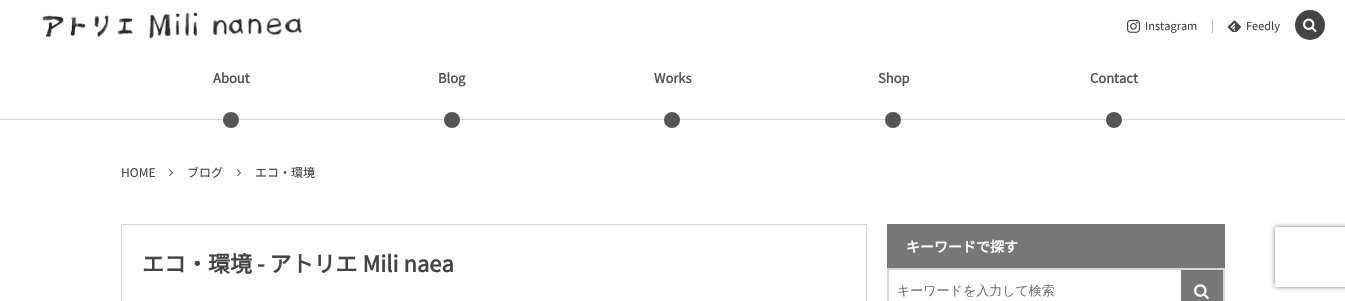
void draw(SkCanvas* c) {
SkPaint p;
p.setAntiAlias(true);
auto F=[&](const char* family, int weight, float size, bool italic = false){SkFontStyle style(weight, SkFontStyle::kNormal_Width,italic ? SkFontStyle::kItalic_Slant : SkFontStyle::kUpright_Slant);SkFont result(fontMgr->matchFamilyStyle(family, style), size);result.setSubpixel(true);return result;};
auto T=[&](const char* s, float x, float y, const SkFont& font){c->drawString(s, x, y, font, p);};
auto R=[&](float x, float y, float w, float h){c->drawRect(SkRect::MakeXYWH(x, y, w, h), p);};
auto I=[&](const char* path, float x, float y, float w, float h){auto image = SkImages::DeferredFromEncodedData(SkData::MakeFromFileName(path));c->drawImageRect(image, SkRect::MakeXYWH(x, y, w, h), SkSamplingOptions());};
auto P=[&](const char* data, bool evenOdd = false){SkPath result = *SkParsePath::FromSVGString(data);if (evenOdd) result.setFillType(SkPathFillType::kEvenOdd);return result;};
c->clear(0xffffffff);
I("1.png",42,12,261,27);
I("2.png",1127,19,13,14);
auto f1 = F("Noto Sans JP",100,11);
p.setColor(0xff444444);
T("Instagram",1145,30,f1);
p.setColor(0xffb4b4b4);
R(1212,20,1,13);
I("3.png",1228,20,13,12);
p.setColor(0xff444444);
T("Feedly",1246,30,f1);
auto f2 = F("Noto Sans JP",700,13);
p.setColor(0xff555555);
T("About",213,83,f2);
p.setColor(0xffd6d6d6);
R(0,119,1345,1);
p.setColor(0xff555555);
c->drawCircle(231,120,8,p);
T("Blog",438,83,f2);
c->drawCircle(452,120,8,p);
T("Works",654,83,f2);
c->drawCircle(672,120,8,p);
T("Shop",878,83,f2);
c->drawCircle(893,120,8,p);
T("Contact",1090,83,f2);
c->drawCircle(1114,120,8,p);
auto f3 = F("Noto Sans JP",100,12);
p.setColor(0xff444444);
T("HOME",121,177,f3);
I("4.png",169,169,4,7);
T("ブログ",187,177,f3);
I("4.png",237,169,4,7);
T("エコ・環境",255,177,f3);
p.setStroke(true);
p.setStrokeWidth(1);
p.setColor(0xffd6d6d6);
c->drawRect(SkRect::MakeXYWH(121.5,224.5,745,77),p);
auto f4 = F("Noto Sans JP",700,22);
p.setStroke(false);
p.setColor(0xff444444);
T("エコ・環境 - アトリエ Mili naea",142,272,f4);
p.setColor(0xff777777);
R(887,224,338,44);
auto f5 = F("Noto Sans JP",700,14);
p.setColor(0xffffffff);
T("キーワードで探す",906,252,f5);
p.setStroke(true);
p.setColor(0xffd6d6d6);
c->drawRect(SkRect::MakeXYWH(887.5,268.5,337,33),p);
c->drawRect(SkRect::MakeXYWH(888.5,269.5,335,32),p);
auto f6 = F("WenQuanYi Zen Hei",500,13);
p.setStroke(false);
p.setColor(0xff757575);
T("キーワードを入力して検索",897,295,f6);
p.setColor(0xff777777);
R(1181,270,42,31);
I("5.png",1194,284,15,16);
p.setColor(0xff444444);
c->drawCircle(1310,25,15,p);
I("6.png",1303,18,14,14);
c->save();
c->clipPath(P("M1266 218h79v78h-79zm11 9h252c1 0 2 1 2 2v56c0 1-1 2-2 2h-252c-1 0-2-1-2-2v-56c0-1 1-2 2-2z",true),true);
p.setColor(0xff808080);
p.setMaskFilter(SkMaskFilter::MakeBlur(kNormal_SkBlurStyle, 2.5));
c->drawRoundRect(SkRect::MakeXYWH(1275,227,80,60),2,2,p);
p.setMaskFilter(nullptr);
c->restore();
}
